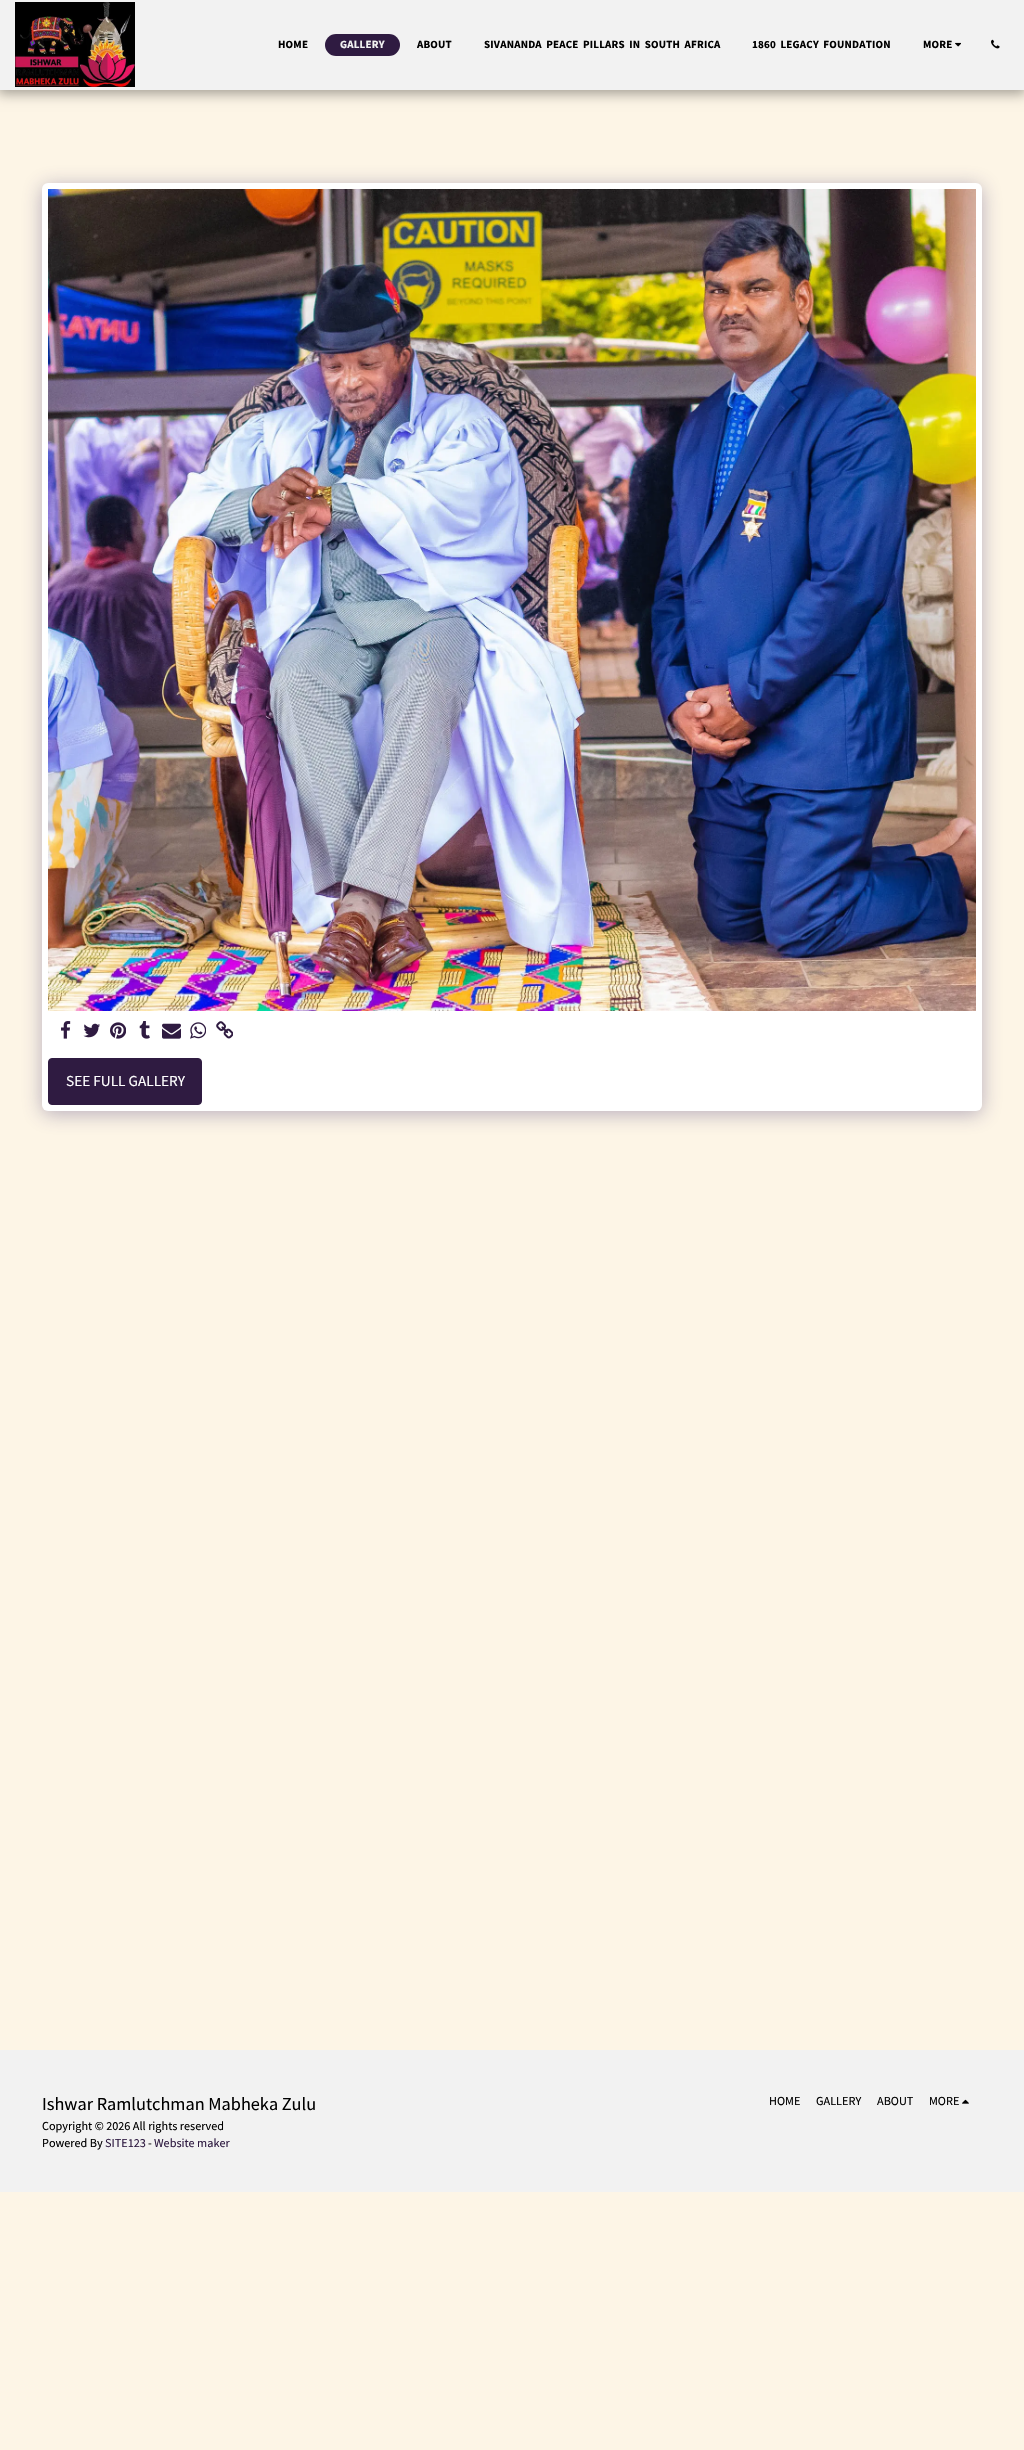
void draw(SkCanvas* c) {
SkPaint p;
p.setAntiAlias(true);
auto F=[&](const char* family, int weight, float size, bool italic = false){SkFontStyle style(weight, SkFontStyle::kNormal_Width,italic ? SkFontStyle::kItalic_Slant : SkFontStyle::kUpright_Slant);SkFont result(fontMgr->matchFamilyStyle(family, style), size);result.setSubpixel(true);return result;};
auto T=[&](const char* s, float x, float y, const SkFont& font){c->drawString(s, x, y, font, p);};
auto L=[&](const char* s, float x, float y, const SkFont& font, const SkPaint& ink, float letter, float word){std::vector<SkGlyphID> glyphs(font.countText(s, strlen(s), SkTextEncoding::kUTF8));std::vector<float> xs(glyphs.size());font.textToGlyphs(s, strlen(s), SkTextEncoding::kUTF8, glyphs);font.getXPos(glyphs, xs, x);float extra = 0;for (size_t i = 0; i < glyphs.size(); i++) {xs[i] += extra;extra += letter + word * (glyphs[i] == font.unicharToGlyph(' '));}c->drawTextBlob(SkTextBlob::MakeFromPosHGlyphs(glyphs, xs, y, font), 0, 0, ink);};
auto R=[&](float x, float y, float w, float h){c->drawRect(SkRect::MakeXYWH(x, y, w, h), p);};
auto Q=[&](float x, float y, float w, float h, float radius){c->drawRoundRect(SkRect::MakeXYWH(x, y, w, h), radius, radius, p);};
auto I=[&](const char* path, float x, float y, float w, float h){auto image = SkImages::DeferredFromEncodedData(SkData::MakeFromFileName(path));c->drawImageRect(image, SkRect::MakeXYWH(x, y, w, h), SkSamplingOptions());};
c->clear(0xfffdf5e6);
p.setColor(0x59000000);
p.setMaskFilter(SkMaskFilter::MakeBlur(kNormal_SkBlurStyle, 6));
c->drawRect(SkRect::MakeXYWH(-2,0,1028,94),p);
p.setMaskFilter(nullptr);
p.setColor(0xfff2f2f2);
R(0,0,1024,90);
I("1.png",15,2,120,85);
auto f1 = F("Source Sans Pro",700,11);
p.setColor(0xff000000);
L("HOME",278,48,f1,p,.2,0);
p.setColor(0xff2f1b41);
Q(325,34,75,22,11);
p.setColor(0xfff2f2f2);
L("GALLERY",340,48,f1,p,.2,0);
p.setColor(0xff000000);
L("ABOUT",417,48,f1,p,.2,0);
L("SIVANANDA PEACE PILLARS IN SOUTH AFRICA",484,48,f1,p,.2,2);
L("1860 LEGACY FOUNDATION",752,48,f1,p,.2,2);
L("MORE",923,48,f1,p,.2,0);
I("2.png",955,42,6,5);
I("3.png",991,39,9,10);
p.setColor(0x664d3f7a);
p.setMaskFilter(SkMaskFilter::MakeBlur(kNormal_SkBlurStyle, 10));
c->drawRoundRect(SkRect::MakeXYWH(42,186,940,928),6,6,p);
p.setMaskFilter(nullptr);
p.setColor(0xffffffff);
Q(42,183,940,928,6);
I("4.png",48,189,928,822);
I("5.png",61,1021,10,18);
I("6.png",83,1023,17,15);
I("7.png",110,1022,16,17);
I("8.png",139,1021,11,18);
I("9.png",162,1023,19,16);
I("10.png",190,1022,16,17);
I("11.png",216,1021,17,18);
p.setColor(0xff2f1b41);
c->drawRoundRect(SkRect::MakeXYWH(48.5,1058.5,153,46),3.5,3.5,p);
p.setStroke(true);
p.setStrokeWidth(1);
c->drawRoundRect(SkRect::MakeXYWH(48.5,1058.5,153,46),3.5,3.5,p);
auto f2 = F("Source Sans Pro",400,15.25);
p.setStroke(false);
p.setColor(0xffffffff);
T("SEE FULL GALLERY",66,1086,f2);
p.setColor(0xfff2f2f2);
R(0,2050,1024,142);
auto f3 = F("Source Sans Pro",400,18.25);
p.setColor(0xff000000);
T("Ishwar Ramlutchman Mabheka Zulu",42,2110,f3);
auto f4 = F("Source Sans Pro",400,12.2);
T("Copyright © 2026 All rights reserved",42,2130,f4);
T("Powered By",42,2147,f4);
p.setColor(0xff2f1b41);
T("SITE123",105,2147,f4);
p.setColor(0xff000000);
T("-",148,2147,f4);
p.setColor(0xff2f1b41);
T("Website maker",154,2147,f4);
p.setColor(0xff000000);
T("HOME",769,2105,f4);
T("GALLERY",816,2105,f4);
T("ABOUT",877,2105,f4);
T("MORE",929,2105,f4);
I("12.png",962,2099,7,5);
}
